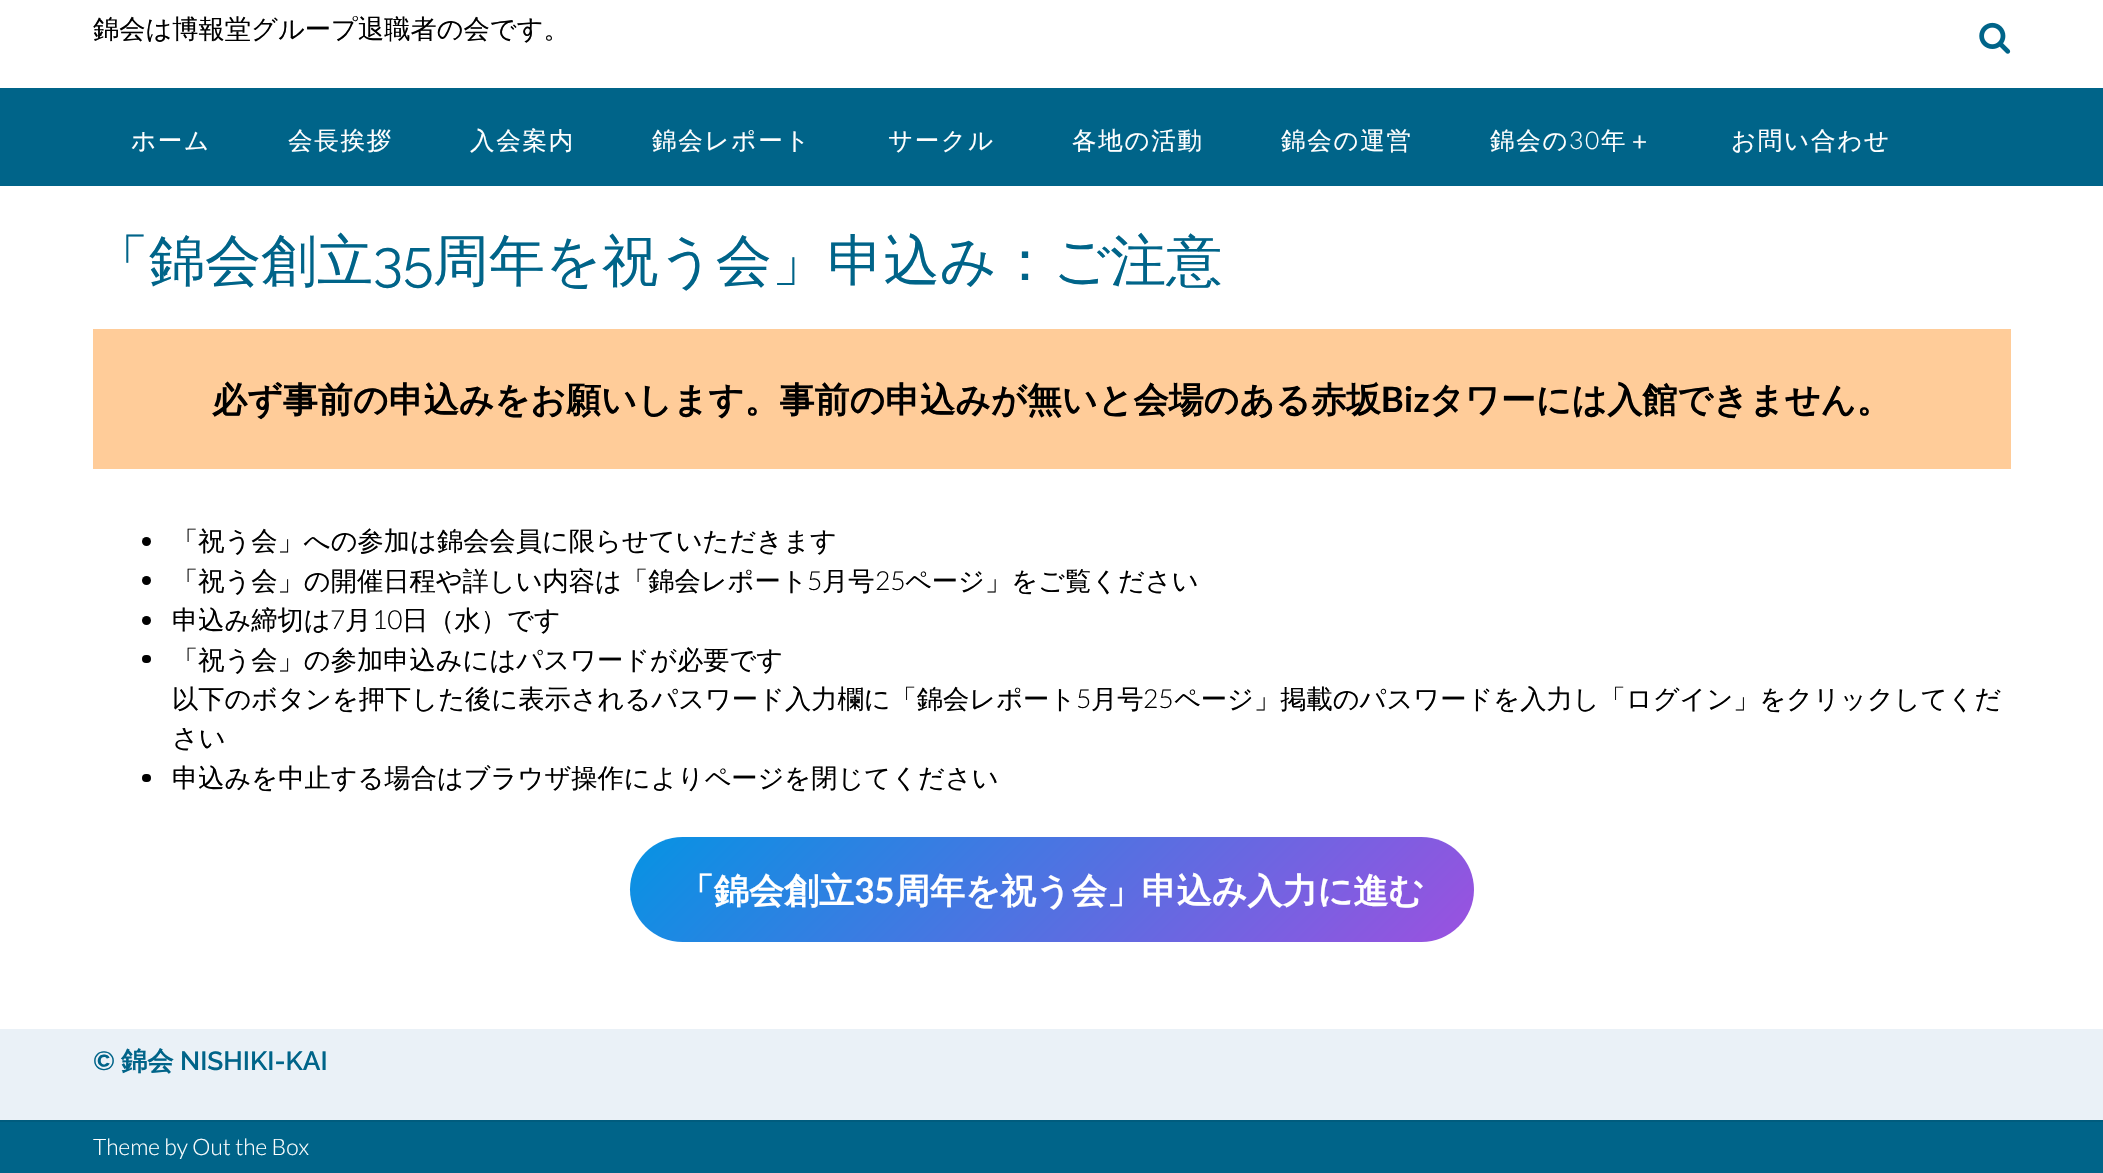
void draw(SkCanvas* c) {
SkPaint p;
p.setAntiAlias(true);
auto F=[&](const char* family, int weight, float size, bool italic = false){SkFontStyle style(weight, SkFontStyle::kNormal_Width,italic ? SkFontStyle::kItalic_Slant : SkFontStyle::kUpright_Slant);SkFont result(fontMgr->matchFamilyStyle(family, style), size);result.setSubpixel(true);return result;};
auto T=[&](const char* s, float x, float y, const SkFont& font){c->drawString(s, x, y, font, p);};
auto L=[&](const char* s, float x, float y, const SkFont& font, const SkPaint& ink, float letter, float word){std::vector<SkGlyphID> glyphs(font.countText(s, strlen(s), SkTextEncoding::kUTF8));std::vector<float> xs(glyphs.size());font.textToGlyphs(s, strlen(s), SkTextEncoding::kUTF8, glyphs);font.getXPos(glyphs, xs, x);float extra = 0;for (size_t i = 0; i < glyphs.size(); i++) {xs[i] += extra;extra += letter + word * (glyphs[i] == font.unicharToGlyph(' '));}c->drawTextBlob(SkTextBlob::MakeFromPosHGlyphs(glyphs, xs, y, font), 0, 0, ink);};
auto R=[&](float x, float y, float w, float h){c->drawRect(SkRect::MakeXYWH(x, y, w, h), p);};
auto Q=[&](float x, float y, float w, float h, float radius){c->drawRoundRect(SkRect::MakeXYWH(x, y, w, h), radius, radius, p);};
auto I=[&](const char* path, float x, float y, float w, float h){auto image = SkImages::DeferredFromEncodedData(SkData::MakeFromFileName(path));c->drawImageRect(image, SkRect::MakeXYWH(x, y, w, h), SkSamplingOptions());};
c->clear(0xffffffff);
auto f1 = F("WenQuanYi Zen Hei",500,26.25);
p.setColor(0xff000000);
T("錦会は博報堂グループ退職者の会です。",93,38,f1);
I("1.png",1979,22,32,32);
p.setColor(0xff006489);
R(0,88,2103,98);
auto f2 = F("WenQuanYi Zen Hei",500,24.5);
p.setColor(0xffffffff);
L("ホーム",131,149,f2,p,1.75,0);
L("会長挨拶",288,149,f2,p,1.75,0);
L("入会案内",470,149,f2,p,1.75,0);
L("錦会レポート",652,149,f2,p,1.75,0);
L("サークル",888,149,f2,p,1.75,0);
L("各地の活動",1072,149,f2,p,1.75,0);
L("錦会の運営",1281,149,f2,p,1.75,0);
L("錦会の",1490,149,f2,p,1.75,0);
auto f3 = F("Lato",300,24.5);
L("30",1569,149,f3,p,1.75,0);
L("年＋",1601,149,f2,p,1.75,0);
L("お問い合わせ",1731,149,f2,p,1.75,0);
auto f4 = F("WenQuanYi Zen Hei",500,56);
p.setColor(0xff006489);
T("「錦会創立",93,280,f4);
auto f5 = F("Raleway",400,56);
T("35",373,280,f5);
T("周年を祝う会」申込み：ご注意",433,280,f4);
p.setColor(0xffffcc99);
R(93,329,1918,140);
auto f6 = F("WenQuanYi Zen Hei",700,35);
p.setColor(0xff000000);
T("必ず事前の申込みをお願いします。事前の申込みが無いと会場のある赤坂",212,412,f6);
auto f7 = F("Lato",700,35);
T("Biz",1381,412,f7);
T("タワーには入館できません。",1429,412,f6);
c->drawCircle(146.5,541.5,4.5,p);
T("「祝う会」への参加は錦会会員に限らせていただきます",172,550,f1);
c->drawCircle(146.5,580.5,4.5,p);
T("「祝う会」の開催日程や詳しい内容は「錦会レポート",172,590,f1);
auto f8 = F("Lato",300,26.25);
T("5",807,590,f8);
T("月号",822,590,f1);
T("25",875,590,f8);
T("ページ」をご覧ください",905,590,f1);
c->drawCircle(146.5,620.5,4.5,p);
T("申込み締切は",172,629,f1);
T("7",330,629,f8);
T("月",345,629,f1);
T("10",372,629,f8);
T("日（水）です",402,629,f1);
Q(142,655,9,8,4);
T("「祝う会」の参加申込みにはパスワードが必要です",172,669,f1);
T("以下のボタンを押下した後に表示されるパスワード入力欄に「錦会レポート",172,708,f1);
T("5",1076,708,f8);
T("月号",1091,708,f1);
T("25",1143,708,f8);
T("ページ」掲載のパスワードを入力し「ログイン」をクリックしてくだ",1174,708,f1);
T("さい",172,747,f1);
Q(142,774,9,8,4);
T("申込みを中止する場合はブラウザ操作によりページを閉じてください",172,787,f1);
{
const SkColor colors[] = {0xff0693e3,0xff9b51e0};
const float stops[] = {0,1};
const SkPoint ends[] = {{815,652}, {1289,1126}};
p.setShader(SkGradientShader::MakeLinear(ends, colors, stops, 2, SkTileMode::kClamp));
p.setAlpha(255);
}
Q(630,837,844,105,52.5);
p.setShader(nullptr);
p.setColor(0xffffffff);
T("「錦会創立",679,903,f6);
T("35",854,903,f7);
T("周年を祝う会」申込み入力に進む",895,903,f6);
p.setColor(0xffeaf1f7);
R(0,1029,2103,91);
auto f9 = F("Raleway",600,26.25);
p.setColor(0xff006489);
T("©",93,1070,f9);
auto f10 = F("WenQuanYi Zen Hei",700,26.25);
T("錦会",121,1070,f10);
T("NISHIKI-KAI",180,1070,f9);
R(0,1122,2103,51);
p.setColor(0xff005c7e);
R(0,1120,2103,2);
auto f11 = F("Lato",300,22.75);
p.setColor(0xffffffff);
T("Theme by Out the Box",93,1155,f11);
}
